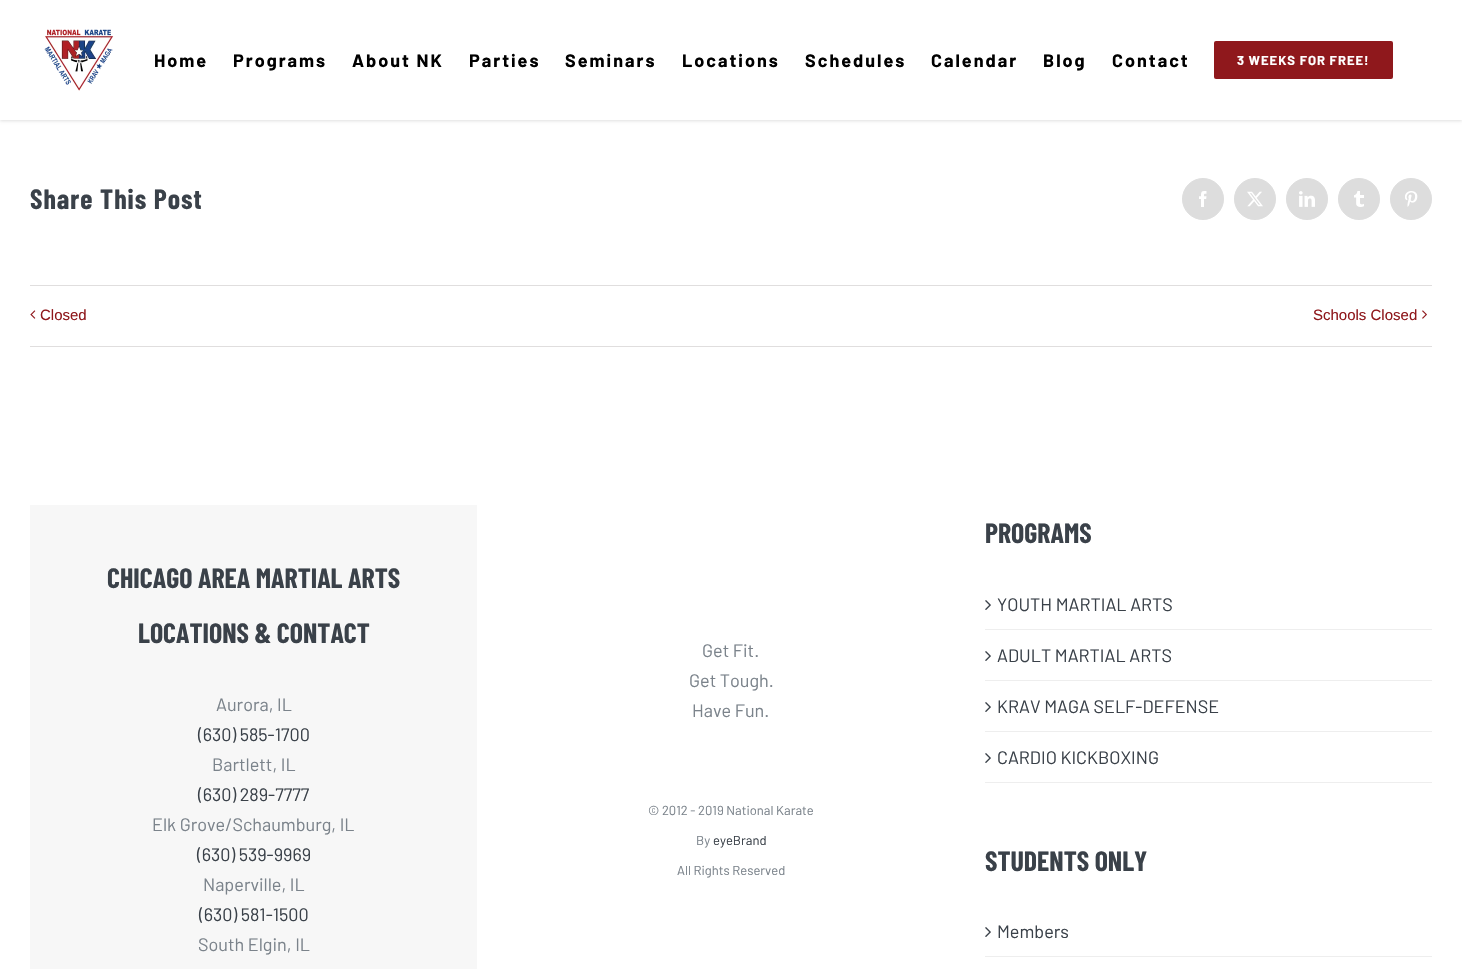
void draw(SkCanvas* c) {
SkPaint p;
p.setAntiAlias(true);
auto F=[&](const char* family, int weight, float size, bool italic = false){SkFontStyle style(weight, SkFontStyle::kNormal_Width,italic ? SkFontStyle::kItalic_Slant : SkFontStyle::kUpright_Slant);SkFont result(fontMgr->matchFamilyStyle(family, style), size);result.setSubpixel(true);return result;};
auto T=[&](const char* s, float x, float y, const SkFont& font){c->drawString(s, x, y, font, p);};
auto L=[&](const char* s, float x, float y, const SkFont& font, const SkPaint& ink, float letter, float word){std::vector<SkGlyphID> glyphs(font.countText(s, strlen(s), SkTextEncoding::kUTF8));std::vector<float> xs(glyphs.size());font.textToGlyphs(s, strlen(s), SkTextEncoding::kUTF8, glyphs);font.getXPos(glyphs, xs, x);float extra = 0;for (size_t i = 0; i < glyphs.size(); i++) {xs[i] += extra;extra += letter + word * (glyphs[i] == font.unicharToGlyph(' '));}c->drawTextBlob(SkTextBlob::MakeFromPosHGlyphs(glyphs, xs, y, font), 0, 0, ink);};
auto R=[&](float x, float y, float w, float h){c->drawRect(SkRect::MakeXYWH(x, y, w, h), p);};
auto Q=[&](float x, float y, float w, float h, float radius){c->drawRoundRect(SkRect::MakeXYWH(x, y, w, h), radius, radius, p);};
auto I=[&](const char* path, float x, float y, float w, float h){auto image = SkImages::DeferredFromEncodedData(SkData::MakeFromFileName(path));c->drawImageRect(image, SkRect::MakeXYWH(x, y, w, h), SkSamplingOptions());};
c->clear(0xffffffff);
p.setColor(0x1f000000);
p.setMaskFilter(SkMaskFilter::MakeBlur(kNormal_SkBlurStyle, 1.5));
c->drawRect(SkRect::MakeXYWH(0,1,1462,120),p);
p.setMaskFilter(nullptr);
p.setColor(0xffffffff);
R(0,0,1462,120);
I("1.png",44,29,70,62);
auto f1 = F("Barlow",700,18);
p.setColor(0xff000000);
L("Home",154,67,f1,p,2,0);
L("Programs",233,67,f1,p,2,0);
L("About NK",352,67,f1,p,2,0);
L("Parties",469,67,f1,p,2,0);
L("Seminars",565,67,f1,p,2,0);
L("Locations",682,67,f1,p,2,0);
L("Schedules",805,67,f1,p,2,0);
L("Calendar",931,67,f1,p,2,0);
L("Blog",1043,67,f1,p,2,0);
L("Contact",1112,67,f1,p,2,0);
p.setColor(0xff8f181c);
Q(1214,41,179,38,2);
auto f2 = F("Barlow",700,13);
p.setColor(0xffffffff);
L("3 WEEKS FOR FREE!",1237,65,f2,p,1,0);
auto f3 = F("Barlow Condensed",700,27.9);
p.setColor(0xff3a4149);
L("Share This Post",30,209,f3,p,1,0);
p.setColor(0xffdddddd);
c->drawCircle(1203,199,20.5,p);
p.setStroke(true);
p.setStrokeWidth(1);
c->drawCircle(1203,199,20.5,p);
I("2.png",1199,191,8,16);
p.setStroke(false);
c->drawCircle(1255,199,20.5,p);
p.setStroke(true);
c->drawCircle(1255,199,20.5,p);
I("3.png",1247,191,16,16);
p.setStroke(false);
c->drawCircle(1307,199,20.5,p);
p.setStroke(true);
c->drawCircle(1307,199,20.5,p);
I("4.png",1299,191,16,16);
p.setStroke(false);
c->drawCircle(1359,199,20.5,p);
p.setStroke(true);
c->drawCircle(1359,199,20.5,p);
I("5.png",1354,191,10,16);
p.setStroke(false);
c->drawCircle(1411,199,20.5,p);
p.setStroke(true);
c->drawCircle(1411,199,20.5,p);
I("6.png",1405,191,13,16);
p.setStroke(false);
p.setColor(0xffe0dede);
R(30,285,1402,1);
R(30,346,1402,1);
I("7.png",30,310,6,9);
auto f4 = F("Liberation Sans",400,15);
p.setColor(0xff8f181c);
T("Closed",40,320,f4);
T("Schools Closed",1313,320,f4);
I("8.png",1422,310,5,9);
p.setColor(0xfff7f7f7);
R(30,505,447,464);
p.setColor(0xff3a4149);
T("CHICAGO AREA MARTIAL ARTS",107,588,f3);
T("LOCATIONS & CONTACT",138,643,f3);
auto f5 = F("Barlow",400,18);
p.setColor(0xff7b838b);
T("Aurora, IL",216,711,f5);
p.setColor(0xff3a4149);
T("(630) 585-1700",198,741,f5);
p.setColor(0xff7b838b);
T("Bartlett, IL",212,771,f5);
p.setColor(0xff3a4149);
T("(630) 289-7777",198,801,f5);
p.setColor(0xff7b838b);
T("Elk Grove/Schaumburg, IL",152,831,f5);
p.setColor(0xff3a4149);
T("(630) 539-9969",197,861,f5);
p.setColor(0xff7b838b);
T("Naperville, IL",203,891,f5);
p.setColor(0xff3a4149);
T("(630) 581-1500",199,921,f5);
p.setColor(0xff7b838b);
T("South Elgin, IL",198,951,f5);
T("Get Fit.",702,657,f5);
T("Get Tough.",689,687,f5);
T("Have Fun.",692,717,f5);
auto f6 = F("Barlow",400,13);
T("© 2012 - 2019 National Karate",648,815,f6);
T("By",696,845,f6);
p.setColor(0xff3a4149);
T("eyeBrand",713,845,f6);
p.setColor(0xff7b838b);
T("All Rights Reserved",677,875,f6);
p.setColor(0xff3a4149);
T("PROGRAMS",985,543,f3);
p.setColor(0xffeeeeee);
R(985,629,447,1);
I("9.png",985,600,6,10);
p.setColor(0xff3a4149);
T("YOUTH MARTIAL ARTS",997,611,f5);
p.setColor(0xffeeeeee);
R(985,680,447,1);
I("9.png",985,651,6,10);
p.setColor(0xff3a4149);
T("ADULT MARTIAL ARTS",997,662,f5);
p.setColor(0xffeeeeee);
R(985,731,447,1);
I("9.png",985,702,6,10);
p.setColor(0xff3a4149);
T("KRAV MAGA SELF-DEFENSE",997,713,f5);
p.setColor(0xffeeeeee);
R(985,782,447,1);
I("9.png",985,753,6,10);
p.setColor(0xff3a4149);
T("CARDIO KICKBOXING",997,764,f5);
T("STUDENTS ONLY",985,871,f3);
p.setColor(0xffeeeeee);
R(985,956,447,1);
I("9.png",985,927,6,10);
p.setColor(0xff3a4149);
T("Members",997,938,f5);
}
